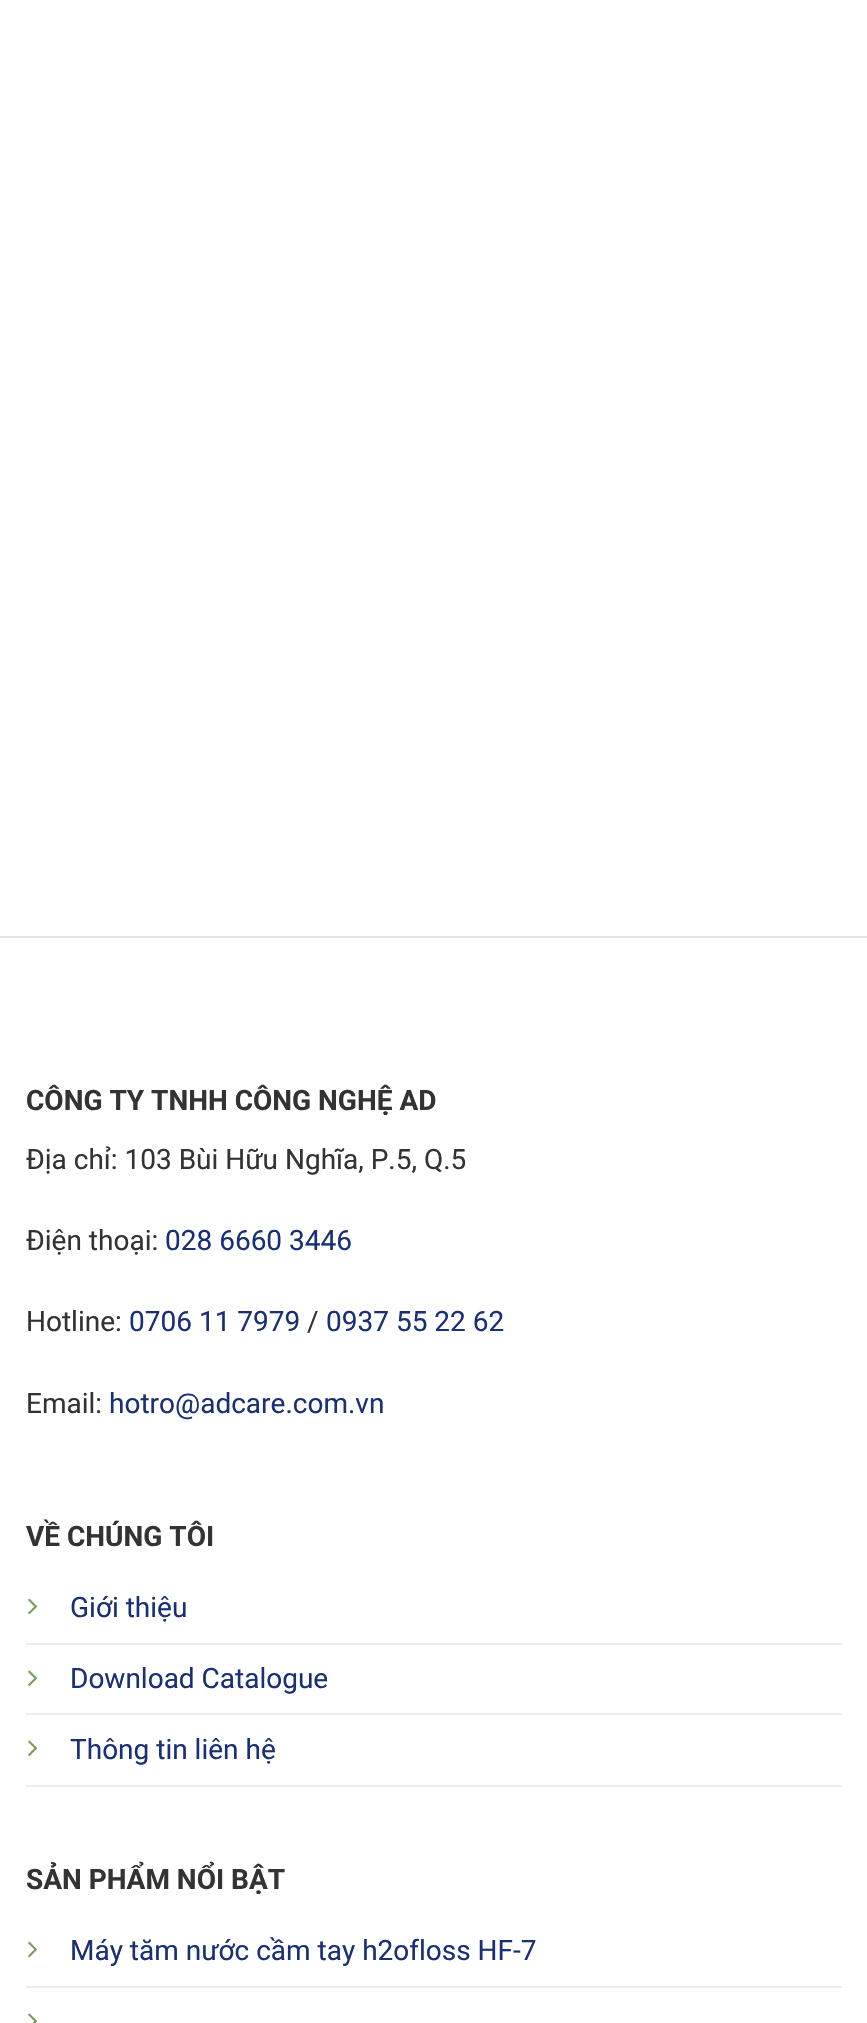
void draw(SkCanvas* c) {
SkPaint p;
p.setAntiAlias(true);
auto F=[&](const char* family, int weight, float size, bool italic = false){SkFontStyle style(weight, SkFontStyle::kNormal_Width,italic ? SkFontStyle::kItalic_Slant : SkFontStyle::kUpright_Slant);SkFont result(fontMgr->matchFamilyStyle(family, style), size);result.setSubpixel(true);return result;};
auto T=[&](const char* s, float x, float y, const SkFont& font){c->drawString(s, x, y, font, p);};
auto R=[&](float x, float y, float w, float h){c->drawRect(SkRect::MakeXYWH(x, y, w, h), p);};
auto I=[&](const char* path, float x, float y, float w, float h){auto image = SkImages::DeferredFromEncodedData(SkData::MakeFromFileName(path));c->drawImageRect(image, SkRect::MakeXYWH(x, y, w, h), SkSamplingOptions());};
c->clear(0xffffffff);
p.setColor(0xffe6e6e6);
R(0,936,867,2);
auto f1 = F("Roboto",700,28);
p.setColor(0xff333333);
T("CÔNG TY TNHH CÔNG NGHỆ AD",26,1110,f1);
auto f2 = F("Roboto",400,28);
T("Địa chỉ: 103 Bùi Hữu Nghĩa, P.5, Q.5",26,1169,f2);
T("Điện thoại:",26,1250,f2);
p.setColor(0xff1b2f76);
T("028 6660 3446",165,1250,f2);
p.setColor(0xff333333);
T("Hotline:",26,1331,f2);
p.setColor(0xff1b2f76);
T("0706 11 7979",129,1331,f2);
p.setColor(0xff333333);
T("/",307,1331,f2);
p.setColor(0xff1b2f76);
T("0937 55 22 62",326,1331,f2);
p.setColor(0xff333333);
T("Email:",26,1413,f2);
p.setColor(0xff1b2f76);
T("hotro@adcare.com.vn",109,1413,f2);
p.setColor(0xff333333);
T("VỀ CHÚNG TÔI",26,1546,f1);
p.setColor(0xffececec);
R(26,1643,816,2);
I("1.png",28,1598,10,17);
p.setColor(0xff1b2f76);
T("Giới thiệu",70,1617,f2);
p.setColor(0xffececec);
R(26,1713,816,2);
I("2.png",28,1670,10,16);
p.setColor(0xff1b2f76);
T("Download Catalogue",70,1688,f2);
p.setColor(0xffececec);
R(26,1785,816,2);
I("2.png",28,1740,10,16);
p.setColor(0xff1b2f76);
T("Thông tin liên hệ",70,1759,f2);
p.setColor(0xff333333);
T("SẢN PHẨM NỔI BẬT",26,1889,f1);
p.setColor(0xffececec);
R(26,1986,816,2);
I("1.png",28,1941,10,17);
p.setColor(0xff1b2f76);
T("Máy tăm nước cầm tay h2ofloss HF-7",70,1960,f2);
I("3.png",28,2013,10,10);
}
